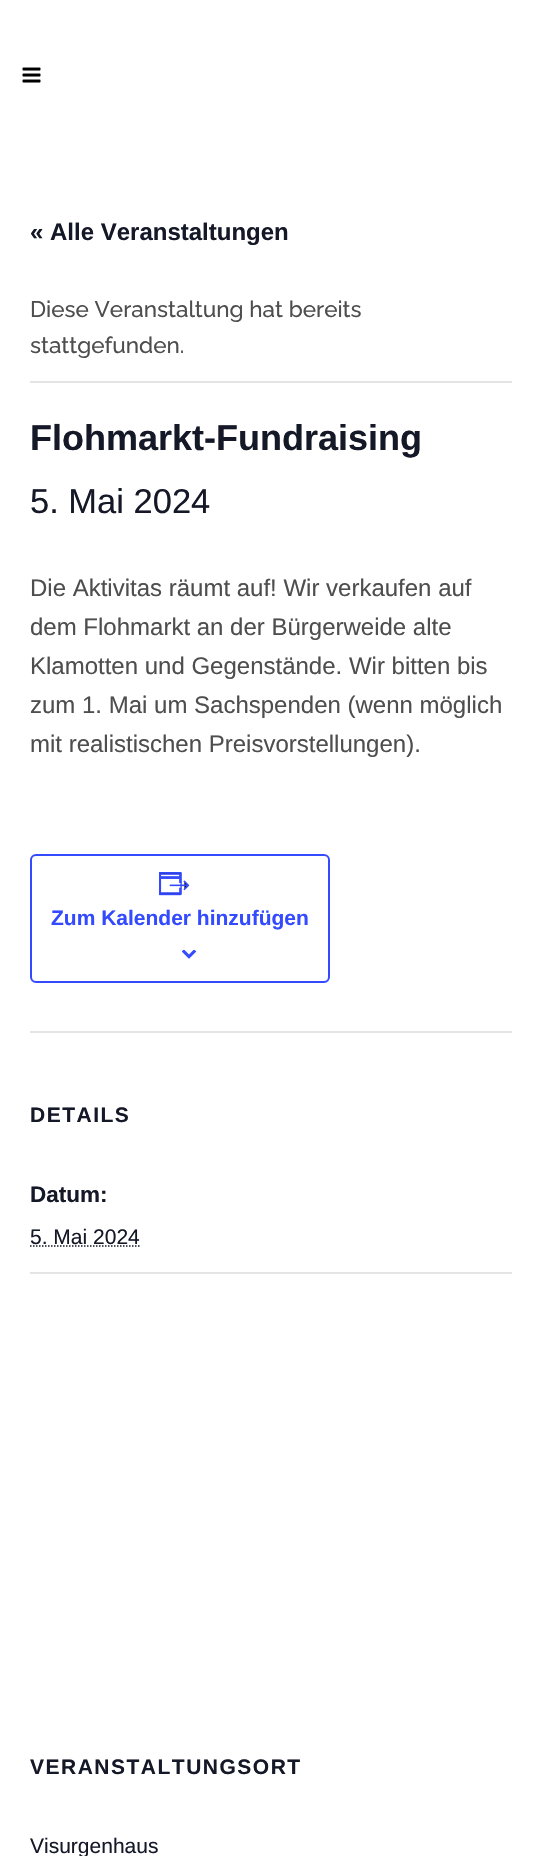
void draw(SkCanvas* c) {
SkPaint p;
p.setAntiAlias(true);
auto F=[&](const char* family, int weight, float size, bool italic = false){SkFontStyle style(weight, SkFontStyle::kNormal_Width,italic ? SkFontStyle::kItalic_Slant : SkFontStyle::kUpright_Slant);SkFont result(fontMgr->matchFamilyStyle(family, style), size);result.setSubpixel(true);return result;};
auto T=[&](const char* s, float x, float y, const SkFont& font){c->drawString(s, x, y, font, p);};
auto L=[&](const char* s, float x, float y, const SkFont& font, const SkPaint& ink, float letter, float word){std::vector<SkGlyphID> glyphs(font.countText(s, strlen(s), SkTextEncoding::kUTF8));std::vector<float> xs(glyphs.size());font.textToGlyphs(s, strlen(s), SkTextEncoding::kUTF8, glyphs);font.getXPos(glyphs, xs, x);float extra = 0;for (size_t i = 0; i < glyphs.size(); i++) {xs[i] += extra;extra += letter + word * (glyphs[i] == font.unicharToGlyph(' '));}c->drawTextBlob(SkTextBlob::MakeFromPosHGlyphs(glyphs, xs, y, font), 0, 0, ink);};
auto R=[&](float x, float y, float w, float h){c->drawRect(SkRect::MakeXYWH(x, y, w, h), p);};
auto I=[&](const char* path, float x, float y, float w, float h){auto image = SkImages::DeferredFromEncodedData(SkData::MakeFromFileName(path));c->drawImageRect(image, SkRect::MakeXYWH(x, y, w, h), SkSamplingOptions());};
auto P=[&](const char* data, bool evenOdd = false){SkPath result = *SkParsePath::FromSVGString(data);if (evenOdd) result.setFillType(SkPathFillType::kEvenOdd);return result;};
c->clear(0xffffffff);
I("1.png",22,67,19,16);
auto f1 = F("Liberation Sans",700,24);
p.setColor(0xff141827);
T("« Alle Veranstaltungen",30,240,f1);
p.setColor(0xffe4e4e4);
R(30,381,482,2);
auto f2 = F("Raleway",500,22.5);
p.setColor(0xff4e4e4e);
T("Diese Veranstaltung hat bereits",30,317,f2);
T("stattgefunden.",30,353,f2);
auto f3 = F("Liberation Sans",700,36);
p.setColor(0xff141827);
T("Flohmarkt-Fundraising",30,450,f3);
auto f4 = F("Liberation Sans",400,34.5);
T("5. Mai 2024",30,513,f4);
auto f5 = F("Liberation Sans",400,24);
p.setColor(0xff4e4e4e);
T("Die Aktivitas räumt auf! Wir verkaufen auf",30,596,f5);
T("dem Flohmarkt an der Bürgerweide alte",30,635,f5);
T("Klamotten und Gegenstände. Wir bitten bis",30,674,f5);
T("zum 1. Mai um Sachspenden (wenn möglich",30,713,f5);
T("mit realistischen Preisvorstellungen).",30,752,f5);
p.setStroke(true);
p.setStrokeWidth(2);
p.setColor(0xff334aff);
c->drawRoundRect(SkRect::MakeXYWH(31,855,298,127),5,5,p);
I("2.png",159,872,31,24);
auto f6 = F("Liberation Sans",700,21);
p.setStroke(false);
T("Zum Kalender hinzufügen",51,925,f6);
I("3.png",182,950,15,9);
p.setColor(0xffe4e4e4);
R(30,1031,482,2);
p.setColor(0xff141827);
L("DETAILS",30,1122,f6,p,1.5,0);
auto f7 = F("Liberation Sans",700,22.5);
T("Datum:",30,1202,f7);
auto f8 = F("Liberation Sans",400,21);
T("5. Mai 2024",30,1244,f8);
p.setStroke(true);
p.setStrokeWidth(1.5);
p.setPathEffect(SkDashPathEffect::Make({{1.5f,1.5f}}, 0));
c->drawPath(P("M30 1246h110"),p);
p.setPathEffect(nullptr);
p.setStroke(false);
p.setColor(0xffe4e4e4);
R(30,1272,482,2);
p.setColor(0xff141827);
L("VERANSTALTUNGSORT",30,1774,f6,p,1.5,0);
T("Visurgenhaus",30,1853,f8);
}
